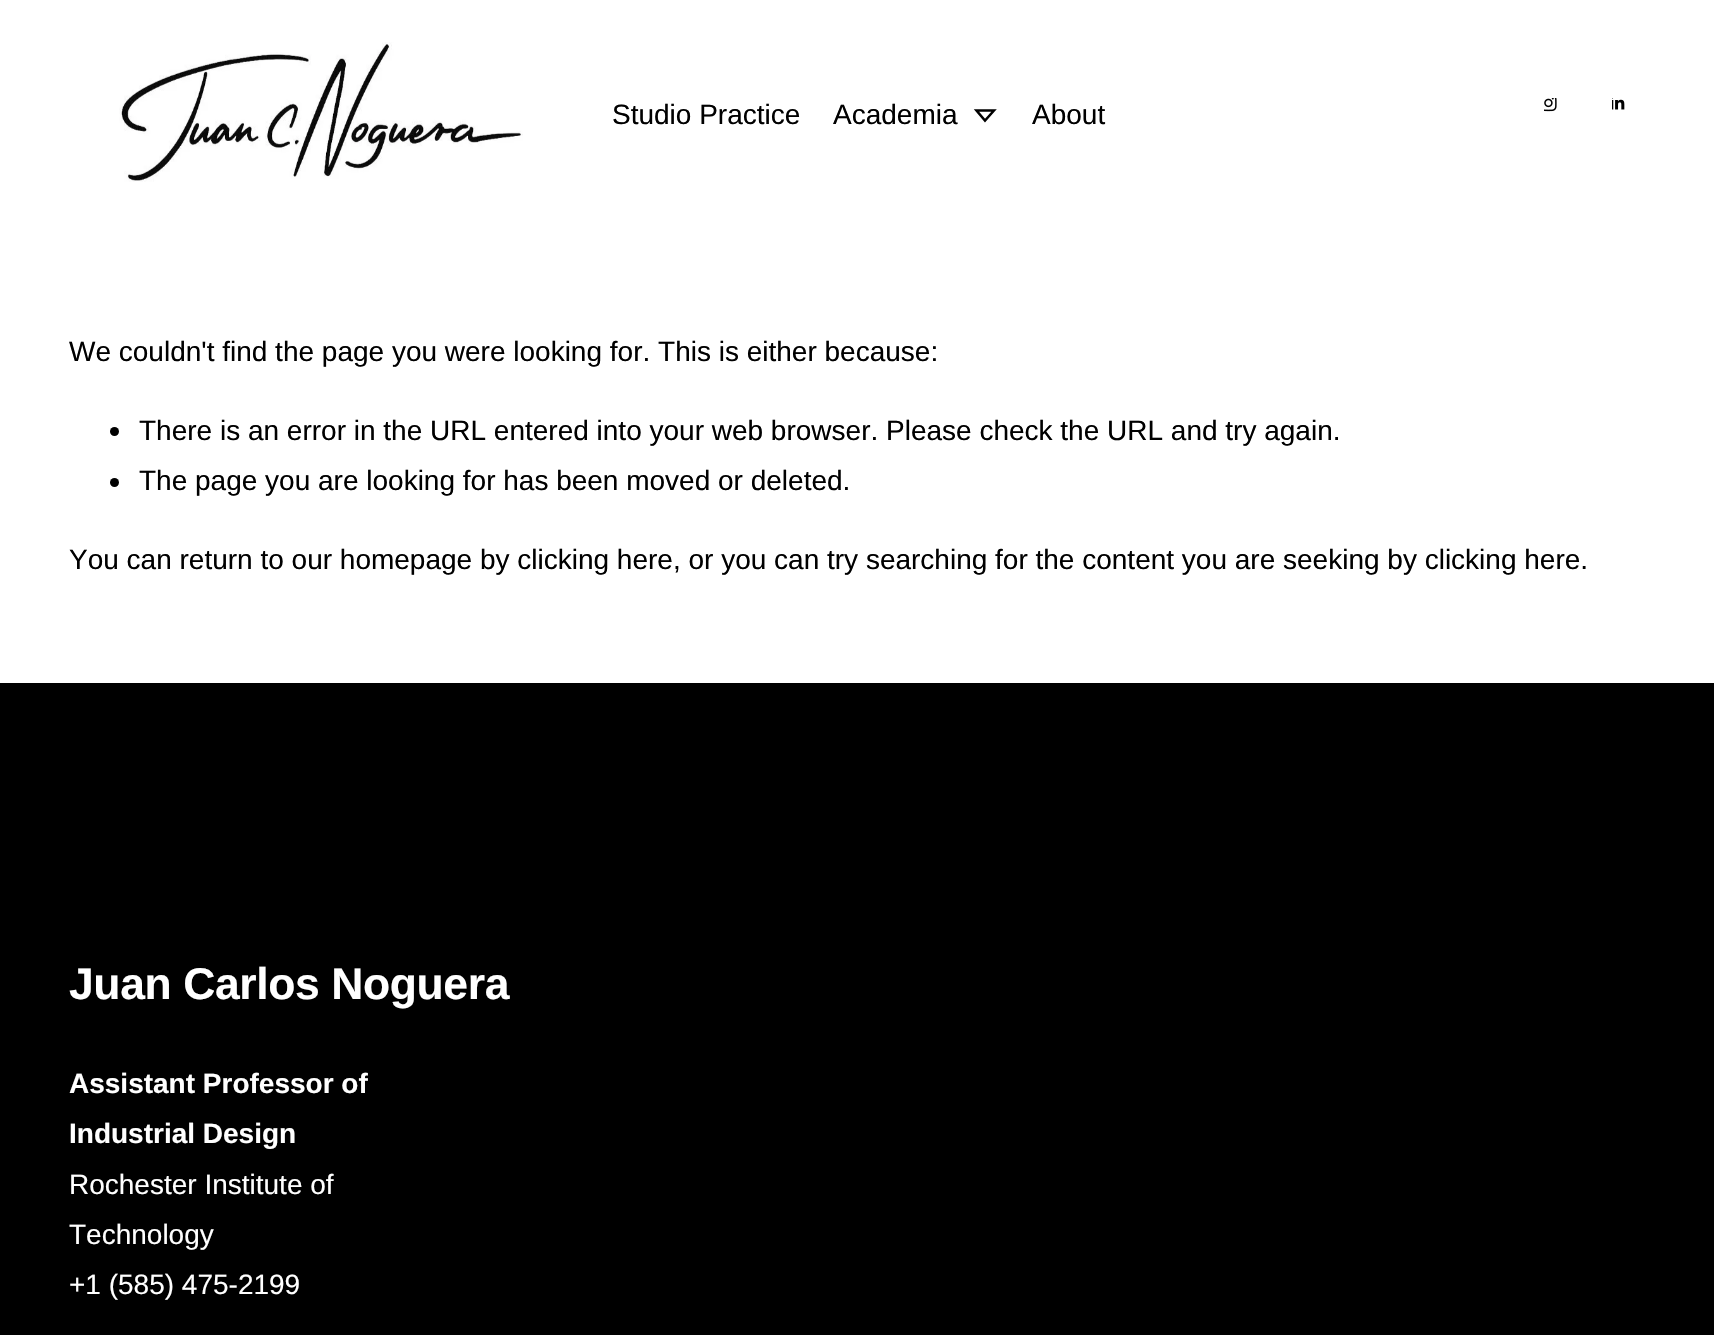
void draw(SkCanvas* c) {
SkPaint p;
p.setAntiAlias(true);
auto F=[&](const char* family, int weight, float size, bool italic = false){SkFontStyle style(weight, SkFontStyle::kNormal_Width,italic ? SkFontStyle::kItalic_Slant : SkFontStyle::kUpright_Slant);SkFont result(fontMgr->matchFamilyStyle(family, style), size);result.setSubpixel(true);return result;};
auto T=[&](const char* s, float x, float y, const SkFont& font){c->drawString(s, x, y, font, p);};
auto L=[&](const char* s, float x, float y, const SkFont& font, const SkPaint& ink, float letter, float word){std::vector<SkGlyphID> glyphs(font.countText(s, strlen(s), SkTextEncoding::kUTF8));std::vector<float> xs(glyphs.size());font.textToGlyphs(s, strlen(s), SkTextEncoding::kUTF8, glyphs);font.getXPos(glyphs, xs, x);float extra = 0;for (size_t i = 0; i < glyphs.size(); i++) {xs[i] += extra;extra += letter + word * (glyphs[i] == font.unicharToGlyph(' '));}c->drawTextBlob(SkTextBlob::MakeFromPosHGlyphs(glyphs, xs, y, font), 0, 0, ink);};
auto R=[&](float x, float y, float w, float h){c->drawRect(SkRect::MakeXYWH(x, y, w, h), p);};
auto I=[&](const char* path, float x, float y, float w, float h){auto image = SkImages::DeferredFromEncodedData(SkData::MakeFromFileName(path));c->drawImageRect(image, SkRect::MakeXYWH(x, y, w, h), SkSamplingOptions());};
auto P=[&](const char* data, bool evenOdd = false){SkPath result = *SkParsePath::FromSVGString(data);if (evenOdd) result.setFillType(SkPathFillType::kEvenOdd);return result;};
c->clear(0xffffffff);
I("1.png",119,42,404,140);
auto f1 = F("Liberation Sans",400,28);
p.setColor(0xff000000);
T("Studio Practice",612,124,f1);
T("Academia",833,124,f1);
p.setStroke(true);
p.setStrokeWidth(2.5);
p.setStrokeCap(SkPaint::kSquare_Cap);
c->drawPath(P("M994 110.5l-9 10l-8.5-10z"),p);
p.setStroke(false);
T("About",1032,124,f1);
I("2.png",1544,98,13,14);
I("3.png",1612,98,13,12);
T("We couldn't find the page you were looking for. This is either because:",69,361,f1);
c->drawCircle(114.5,431.5,4.5,p);
T("There is an error in the URL entered into your web browser. Please check the URL and try again.",139,440,f1);
c->drawCircle(114.5,482.5,4.5,p);
T("The page you are looking for has been moved or deleted.",139,490,f1);
T("You can return to our homepage by clicking here, or you can try searching for the content you are seeking by clicking here.",69,569,f1);
R(0,683,1714,652);
auto f2 = F("Liberation Sans",700,44.5);
p.setColor(0xffffffff);
L("Juan Carlos Noguera",69,999,f2,p,-.4,0);
auto f3 = F("Liberation Sans",700,28);
T("Assistant Professor of",69,1093,f3);
T("Industrial Design",69,1143,f3);
T("Rochester Institute of",69,1194,f1);
T("Technology",69,1244,f1);
T("+1 (585) 475-2199",69,1294,f1);
}
